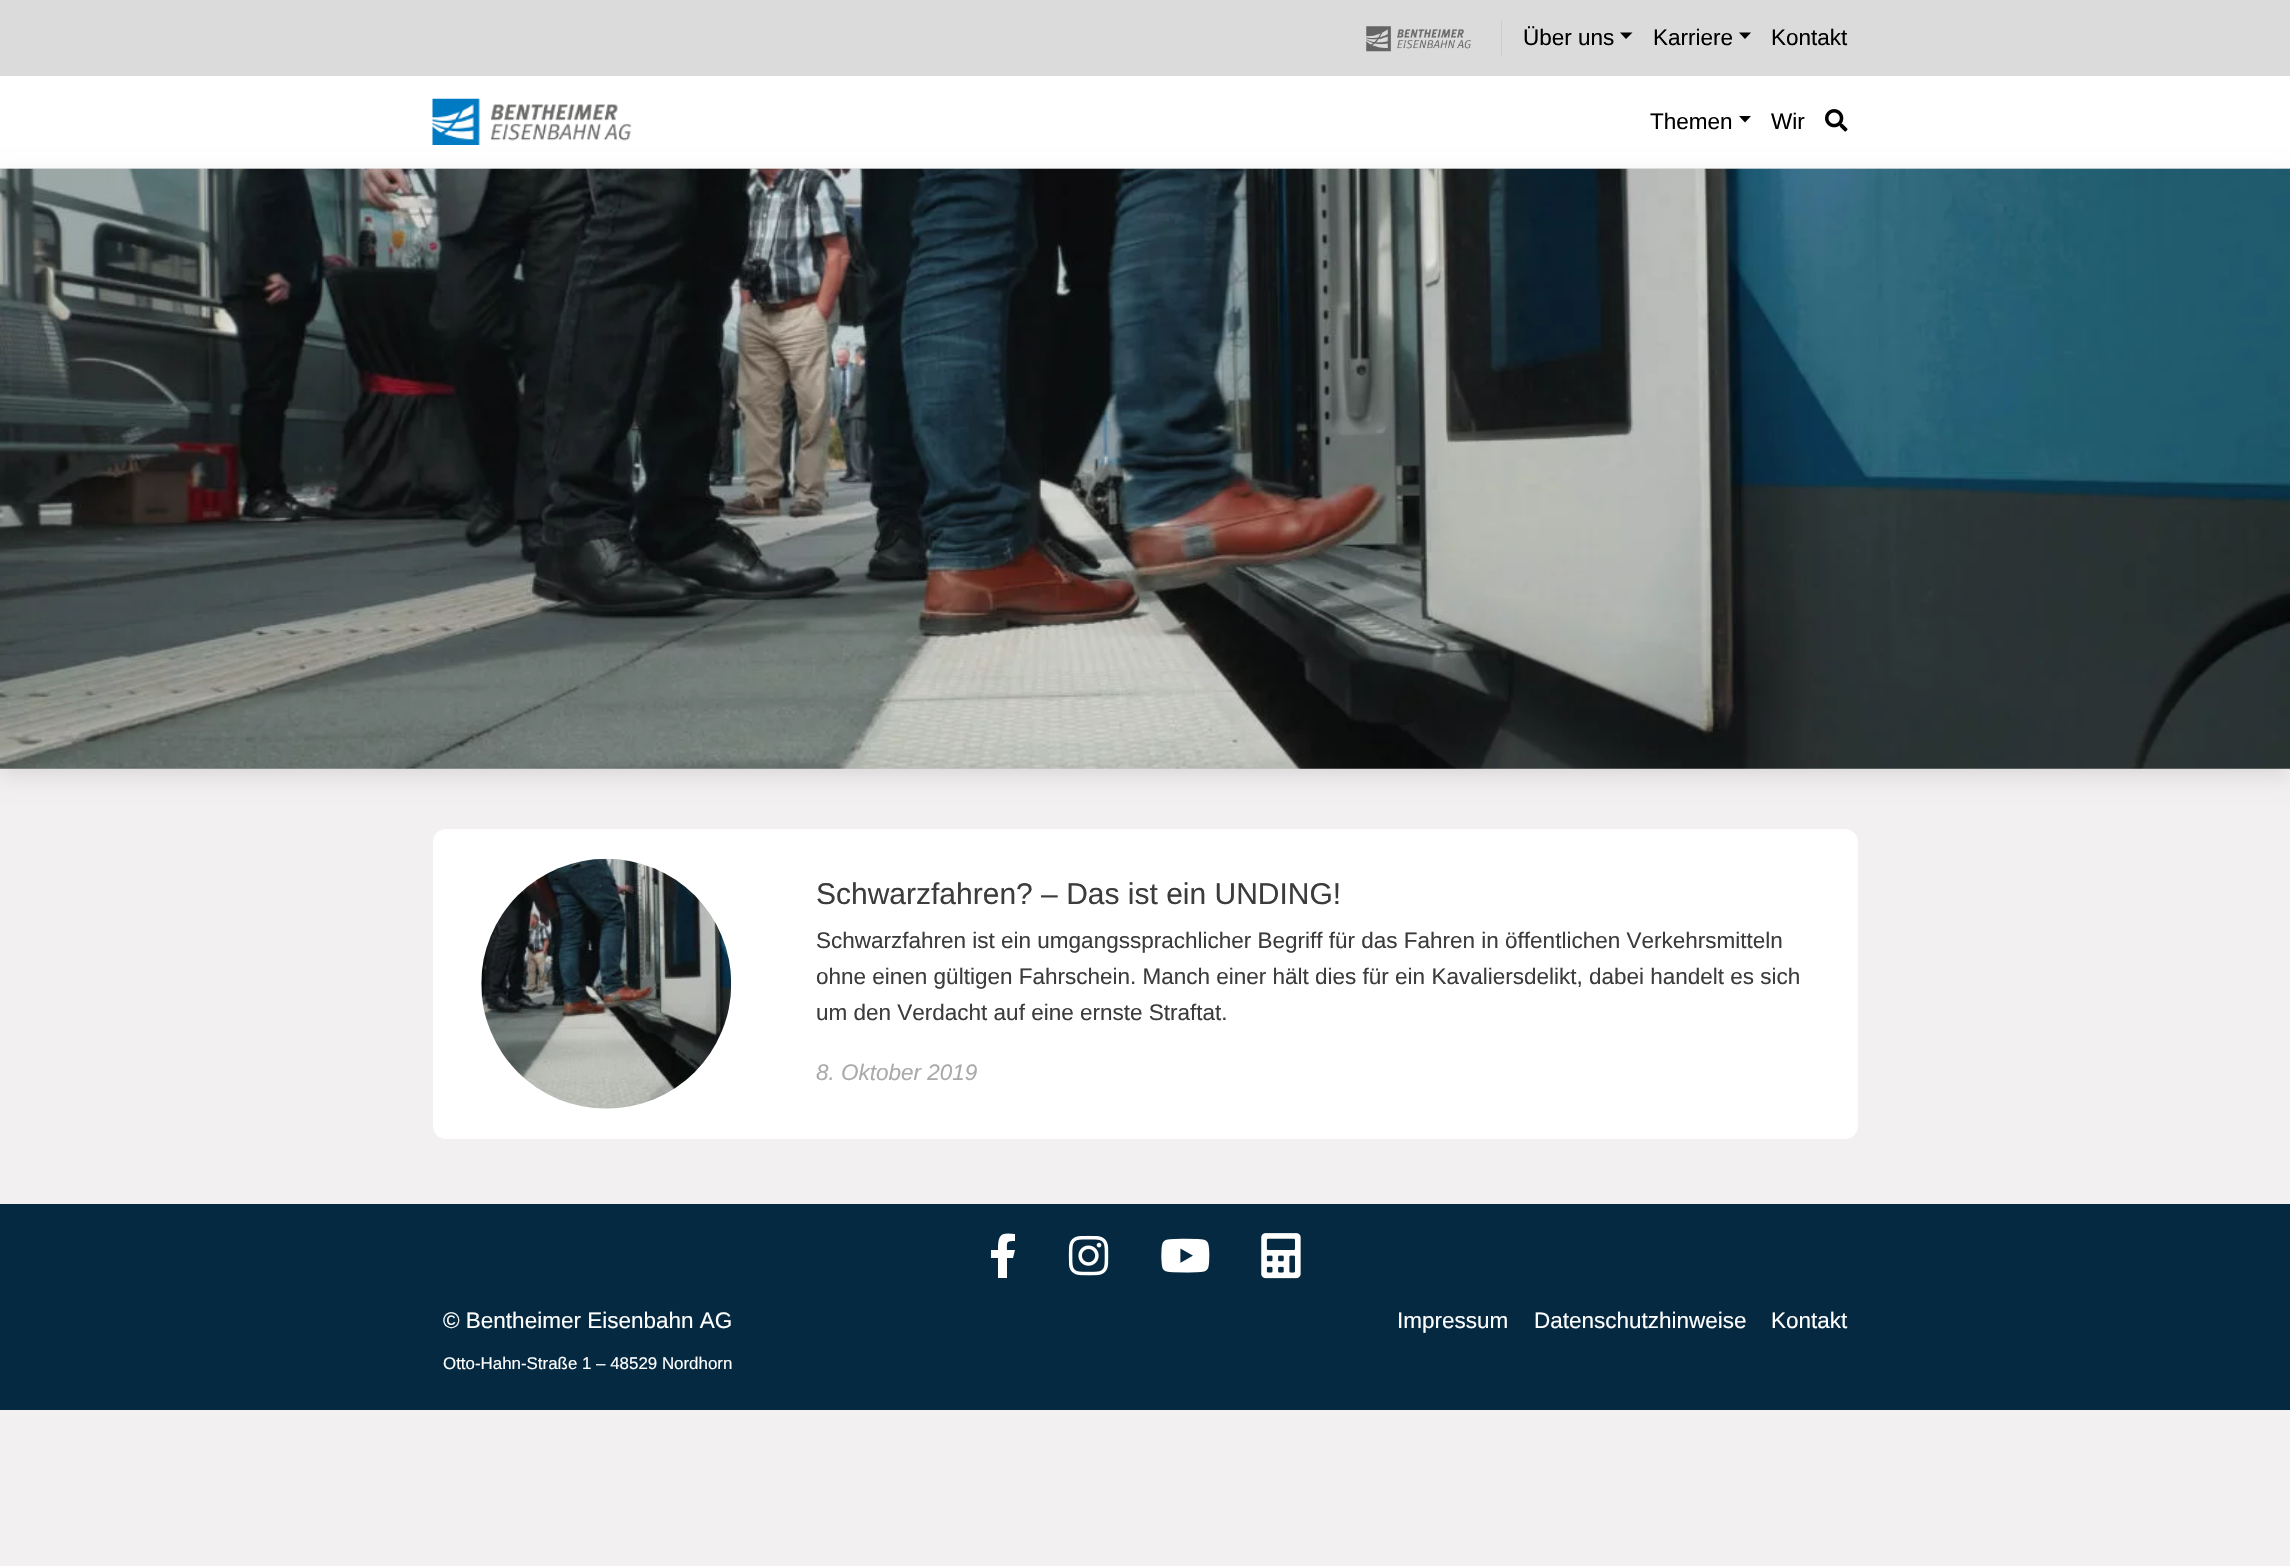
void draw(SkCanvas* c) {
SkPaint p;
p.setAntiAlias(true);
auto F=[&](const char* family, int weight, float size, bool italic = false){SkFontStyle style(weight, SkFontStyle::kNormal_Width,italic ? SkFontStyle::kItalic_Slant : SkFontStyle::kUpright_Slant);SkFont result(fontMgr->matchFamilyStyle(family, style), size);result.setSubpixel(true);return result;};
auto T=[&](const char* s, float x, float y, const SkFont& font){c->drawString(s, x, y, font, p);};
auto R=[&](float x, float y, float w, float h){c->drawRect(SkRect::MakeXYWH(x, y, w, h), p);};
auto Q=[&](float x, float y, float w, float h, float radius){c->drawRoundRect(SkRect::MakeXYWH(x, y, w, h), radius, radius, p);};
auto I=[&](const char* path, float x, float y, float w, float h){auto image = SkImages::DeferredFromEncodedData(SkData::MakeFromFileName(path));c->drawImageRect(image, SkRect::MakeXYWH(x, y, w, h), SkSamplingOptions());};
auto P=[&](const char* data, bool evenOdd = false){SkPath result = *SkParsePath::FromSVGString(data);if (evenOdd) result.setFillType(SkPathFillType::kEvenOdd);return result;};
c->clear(0xfff2f0f0);
p.setColor(0xffeeeeee);
R(0,168,2290,1);
p.setColor(0xffdbdbdb);
R(0,0,2290,76);
p.setColor(0xffcccccc);
R(1501,20,1,36);
I("1.png",1366,26,105,26);
auto f1 = F("Liberation Sans",400,22.5);
p.setColor(0xff000000);
T("Über uns",1523,45,f1);
c->drawPath(P("M1620 32.5h12.5l-6.5 6.5z"),p);
T("Karriere",1653,45,f1);
c->drawPath(P("M1739 32.5h12l-6 6.5z"),p);
T("Kontakt",1771,45,f1);
p.setColor(0xffffffff);
R(0,76,2290,92);
I("2.png",432,98,200,47);
p.setColor(0xff000000);
T("Themen",1650,129,f1);
c->drawPath(P("M1739 116h12l-6 6.5z"),p);
T("Wir",1771,129,f1);
I("3.png",1825,109,23,23);
p.setColor(0x1a000000);
p.setMaskFilter(SkMaskFilter::MakeBlur(kNormal_SkBlurStyle, 10));
c->drawRect(SkRect::MakeXYWH(0,176,2290,600),p);
p.setMaskFilter(nullptr);
I("4.png",0,168,2290,601);
p.setColor(0xffffffff);
Q(433,829,1425,310,13);
I("5.png",481,858,251,251);
auto f2 = F("Liberation Sans",400,30);
p.setColor(0xff3c3c3c);
T("Schwarzfahren? – Das ist ein UNDING!",816,904,f2);
T("Schwarzfahren ist ein umgangssprachlicher Begriff für das Fahren in öffentlichen Verkehrsmitteln",816,948,f1);
T("ohne einen gültigen Fahrschein. Manch einer hält dies für ein Kavaliersdelikt, dabei handelt es sich",816,984,f1);
T("um den Verdacht auf eine ernste Straftat.",816,1020,f1);
auto f3 = F("Liberation Sans",400,22.5,true);
p.setColor(0xffaaaaaa);
T("8. Oktober 2019",816,1080,f3);
p.setColor(0xff042940);
R(0,1204,2290,206);
p.setColor(0xffffffff);
c->drawPath(P("M1013 1258h-6v20h-9v-20h-7v-8h7c0-15 2-18 17-16v7c-9 0-8 1-8 9h8z"),p);
I("6.png",1068,1235,41,41);
I("7.png",1161,1238,49,35);
I("8.png",1261,1233,40,46);
T("© Bentheimer Eisenbahn AG",443,1328,f1);
auto f4 = F("Liberation Sans",400,16.9);
T("Otto-Hahn-Straße 1 – 48529 Nordhorn",443,1369,f4);
T("Impressum",1397,1328,f1);
T("Datenschutzhinweise",1534,1328,f1);
T("Kontakt",1771,1328,f1);
}
